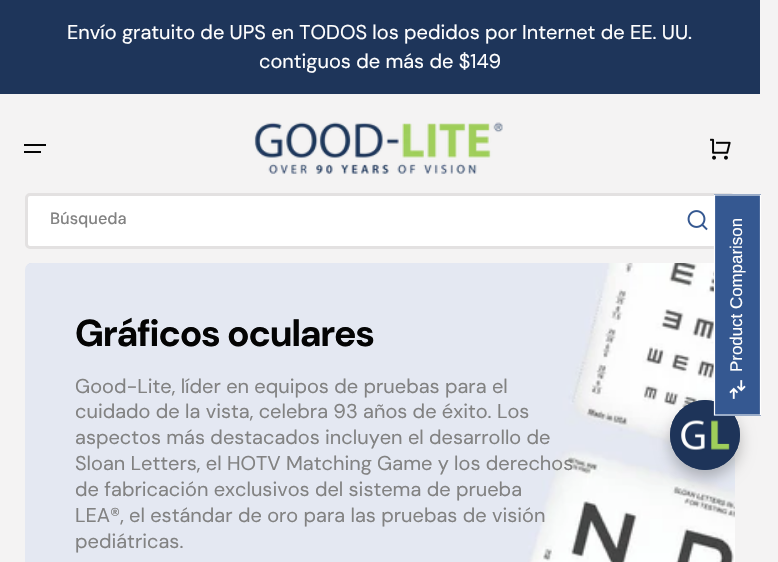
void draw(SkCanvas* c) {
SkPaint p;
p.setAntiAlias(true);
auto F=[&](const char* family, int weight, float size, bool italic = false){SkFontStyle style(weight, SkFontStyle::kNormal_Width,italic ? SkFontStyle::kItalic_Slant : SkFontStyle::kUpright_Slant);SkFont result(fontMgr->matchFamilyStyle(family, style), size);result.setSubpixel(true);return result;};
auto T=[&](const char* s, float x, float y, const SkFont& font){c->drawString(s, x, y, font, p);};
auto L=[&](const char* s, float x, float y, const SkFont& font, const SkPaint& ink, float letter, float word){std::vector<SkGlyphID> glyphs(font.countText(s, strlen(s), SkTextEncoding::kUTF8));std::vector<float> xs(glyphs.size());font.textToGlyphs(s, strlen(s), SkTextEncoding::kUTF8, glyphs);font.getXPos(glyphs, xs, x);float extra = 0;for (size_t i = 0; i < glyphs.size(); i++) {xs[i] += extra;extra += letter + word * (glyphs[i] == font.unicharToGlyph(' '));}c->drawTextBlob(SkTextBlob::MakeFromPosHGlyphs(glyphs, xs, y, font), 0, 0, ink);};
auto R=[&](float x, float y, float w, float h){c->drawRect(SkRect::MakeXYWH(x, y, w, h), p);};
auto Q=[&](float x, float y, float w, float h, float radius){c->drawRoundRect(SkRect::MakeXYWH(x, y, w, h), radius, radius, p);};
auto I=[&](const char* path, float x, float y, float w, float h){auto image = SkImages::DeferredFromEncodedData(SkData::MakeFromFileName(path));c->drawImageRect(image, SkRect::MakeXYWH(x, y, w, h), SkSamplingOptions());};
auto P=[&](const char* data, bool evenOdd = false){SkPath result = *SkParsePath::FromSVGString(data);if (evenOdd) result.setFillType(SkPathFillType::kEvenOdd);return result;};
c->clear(0xfff4f3f3);
p.setColor(0xff1e355a);
R(0,0,760,94);
auto f1 = F("DM Sans",400,20);
p.setColor(0xffffffff);
T("Envío gratuito de UPS en TODOS los pedidos por Internet de EE. UU.",67,39,f1);
T("contiguos de más de $149",259,68,f1);
p.setColor(0xff040404);
R(24,144,22,2);
R(24,151,17,2);
I("1.png",254,122,249,52);
I("2.png",710,138,21,22);
p.setColor(0xffffffff);
c->drawRoundRect(SkRect::MakeXYWH(26.5,194.5,707,53),3.5,3.5,p);
p.setStroke(true);
p.setStrokeWidth(3);
p.setColor(0xffe3e1e1);
c->drawRoundRect(SkRect::MakeXYWH(26.5,194.5,707,53),3.5,3.5,p);
auto f2 = F("DM Sans",500,16.25);
p.setStroke(false);
p.setColor(0xff828282);
T("Búsqueda",50,224,f2);
I("3.png",687,210,21,21);
I("5.png",25,263,710,299);
p.setColor(0x33ffffff);
Q(25,263,710,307,8);
p.setColor(0x40000000);
p.setMaskFilter(SkMaskFilter::MakeBlur(kNormal_SkBlurStyle, 7.5));
c->drawRoundRect(SkRect::MakeXYWH(670,408,70,70),35,35,p);
p.setMaskFilter(nullptr);
p.setColor(0xff1e355a);
c->drawCircle(705,435,35,p);
I("6.png",670,400,70,70);
p.setColor(0xff355891);
R(714,194,47,222);
p.setStroke(true);
p.setStrokeWidth(1.2);
p.setColor(0xffffffff);
c->drawPath(P("M714.5 415v-220h46v220z"),p);
auto f3 = F("Liberation Sans",400,16.9);
p.setStroke(false);
c->save();
c->rotate(-90,742,372);
T("Product Comparison",742,372,f3);
c->restore();
I("4.png",729,380,17,19);
auto f4 = F("DM Sans",700,37.5);
p.setColor(0xff040404);
L("Gráficos oculares",75,346,f4,p,-.75,0);
p.setColor(0xff828282);
T("Good-Lite, líder en equipos de pruebas para el",75,393,f1);
T("cuidado de la vista, celebra 93 años de éxito. Los",75,418,f1);
T("aspectos más destacados incluyen el desarrollo de",75,444,f1);
T("Sloan Letters, el HOTV Matching Game y los derechos",75,470,f1);
T("de fabricación exclusivos del sistema de prueba",75,496,f1);
T("LEA®, el estándar de oro para las pruebas de visión",75,522,f1);
T("pediátricas.",75,548,f1);
}
